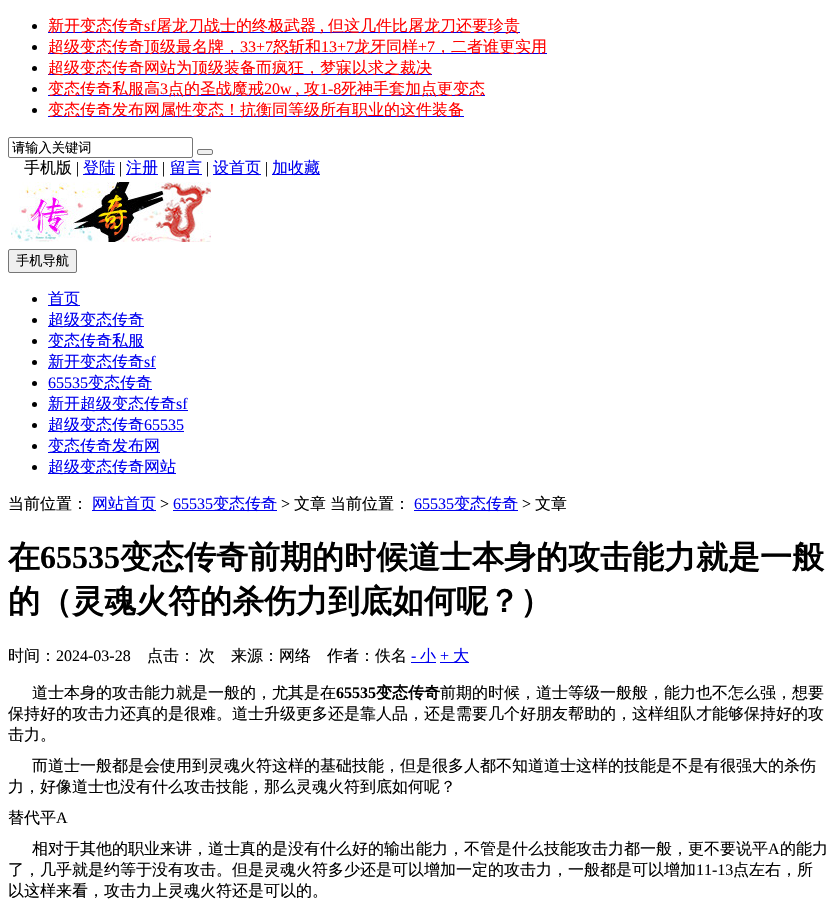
void draw(SkCanvas* c) {
SkPaint p;
p.setAntiAlias(true);
auto F=[&](const char* family, int weight, float size, bool italic = false){SkFontStyle style(weight, SkFontStyle::kNormal_Width,italic ? SkFontStyle::kItalic_Slant : SkFontStyle::kUpright_Slant);SkFont result(fontMgr->matchFamilyStyle(family, style), size);result.setSubpixel(true);return result;};
auto T=[&](const char* s, float x, float y, const SkFont& font){c->drawString(s, x, y, font, p);};
auto R=[&](float x, float y, float w, float h){c->drawRect(SkRect::MakeXYWH(x, y, w, h), p);};
auto I=[&](const char* path, float x, float y, float w, float h){auto image = SkImages::DeferredFromEncodedData(SkData::MakeFromFileName(path));c->drawImageRect(image, SkRect::MakeXYWH(x, y, w, h), SkSamplingOptions());};
c->clear(0xffffffff);
p.setColor(0xff000000);
c->drawCircle(34.5,26.5,2.5,p);
p.setColor(0xff0000ee);
R(48,32,472,1);
auto f1 = F("WenQuanYi Zen Hei",500,16);
p.setColor(0xffff0000);
T("新开变态传奇",48,31,f1);
auto f2 = F("Liberation Serif",400,16);
T("sf",144,31,f2);
T("屠龙刀战士的终极武器",156,31,f1);
T("但这几件比屠龙刀还要珍贵",328,31,f1);
T(",",320,31,f2);
p.setColor(0xff000000);
c->drawCircle(34.5,47.5,2.5,p);
p.setColor(0xff0000ee);
R(48,53,499,1);
p.setColor(0xffff0000);
T("超级变态传奇顶级最名牌，",48,52,f1);
T("33+7",240,52,f2);
T("怒斩和",273,52,f1);
T("13+7",321,52,f2);
T("龙牙同样",354,52,f1);
T("+7",418,52,f2);
T("，二者谁更实用",435,52,f1);
p.setColor(0xff000000);
c->drawCircle(34.5,68.5,2.5,p);
p.setColor(0xff0000ee);
R(48,74,384,1);
p.setColor(0xffff0000);
T("超级变态传奇网站为顶级装备而疯狂，梦寐以求之裁决",48,73,f1);
p.setColor(0xff000000);
c->drawCircle(34.5,89.5,2.5,p);
p.setColor(0xff0000ee);
R(48,95,437,1);
p.setColor(0xffff0000);
T("变态传奇私服高",48,94,f1);
T("3",160,94,f2);
T("点的圣战魔戒",168,94,f1);
T("20w ,",264,94,f2);
T("攻",304,94,f1);
T("1-8",320,94,f2);
T("死神手套加点更变态",341,94,f1);
p.setColor(0xff000000);
c->drawCircle(34.5,110.5,2.5,p);
p.setColor(0xff0000ee);
R(48,116,416,1);
p.setColor(0xffff0000);
T("变态传奇发布网属性变态！抗衡同等级所有职业的这件装备",48,115,f1);
p.setStroke(true);
p.setStrokeWidth(1);
p.setColor(0xff767676);
c->drawRoundRect(SkRect::MakeXYWH(8.5,137.5,184,20),1.5,1.5,p);
auto f3 = F("WenQuanYi Zen Hei",500,13.25);
p.setStroke(false);
p.setColor(0xff000000);
T("请输入关键词",12,152,f3);
p.setColor(0xffefefef);
c->drawRoundRect(SkRect::MakeXYWH(197.5,149.5,15,5),1.5,1.5,p);
p.setStroke(true);
p.setColor(0xff767676);
c->drawRoundRect(SkRect::MakeXYWH(197.5,149.5,15,5),1.5,1.5,p);
p.setStroke(false);
p.setColor(0xff000000);
T("手机版",24,173,f1);
T("|",76,173,f2);
p.setColor(0xff0000ee);
R(83,174,32,1);
T("登陆",83,173,f1);
p.setColor(0xff000000);
T("|",119,173,f2);
p.setColor(0xff0000ee);
R(126,174,32,1);
T("注册",126,173,f1);
p.setColor(0xff000000);
T("|",162,173,f2);
p.setColor(0xff0000ee);
R(170,174,32,1);
T("留言",170,173,f1);
p.setColor(0xff000000);
T("|",206,173,f2);
p.setColor(0xff0000ee);
R(213,174,48,1);
T("设首页",213,173,f1);
p.setColor(0xff000000);
T("|",265,173,f2);
p.setColor(0xff0000ee);
R(272,174,48,1);
T("加收藏",272,173,f1);
I("1.png",11,182,200,60);
p.setColor(0xffefefef);
c->drawRoundRect(SkRect::MakeXYWH(8.5,249.5,68,23),1.5,1.5,p);
p.setStroke(true);
p.setColor(0xff767676);
c->drawRoundRect(SkRect::MakeXYWH(8.5,249.5,68,23),1.5,1.5,p);
p.setStroke(false);
p.setColor(0xff000000);
T("手机导航",16,265,f3);
c->drawCircle(34.5,299.5,2.5,p);
p.setColor(0xff0000ee);
R(48,305,32,1);
T("首页",48,304,f1);
p.setColor(0xff000000);
c->drawCircle(34.5,320.5,2.5,p);
p.setColor(0xff0000ee);
R(48,326,96,1);
T("超级变态传奇",48,325,f1);
p.setColor(0xff000000);
c->drawCircle(34.5,341.5,2.5,p);
p.setColor(0xff0000ee);
R(48,347,96,1);
T("变态传奇私服",48,346,f1);
p.setColor(0xff000000);
c->drawCircle(34.5,362.5,2.5,p);
p.setColor(0xff0000ee);
R(48,368,108,1);
T("新开变态传奇",48,367,f1);
T("sf",144,367,f2);
p.setColor(0xff000000);
c->drawCircle(34.5,383.5,2.5,p);
p.setColor(0xff0000ee);
T("65535",48,388,f2);
R(48,389,104,1);
T("变态传奇",88,388,f1);
p.setColor(0xff000000);
c->drawCircle(34.5,404.5,2.5,p);
p.setColor(0xff0000ee);
R(48,410,140,1);
T("新开超级变态传奇",48,409,f1);
T("sf",176,409,f2);
p.setColor(0xff000000);
c->drawCircle(34.5,425.5,2.5,p);
p.setColor(0xff0000ee);
R(48,431,136,1);
T("超级变态传奇",48,430,f1);
T("65535",144,430,f2);
p.setColor(0xff000000);
c->drawCircle(34.5,446.5,2.5,p);
p.setColor(0xff0000ee);
R(48,452,112,1);
T("变态传奇发布网",48,451,f1);
p.setColor(0xff000000);
c->drawCircle(34.5,467.5,2.5,p);
p.setColor(0xff0000ee);
R(48,473,128,1);
T("超级变态传奇网站",48,472,f1);
p.setColor(0xff000000);
T("当前位置：",8,509,f1);
p.setColor(0xff0000ee);
R(92,510,64,1);
T("网站首页",92,509,f1);
p.setColor(0xff000000);
T(">",160,509,f2);
p.setColor(0xff0000ee);
T("65535",173,509,f2);
R(173,510,104,1);
T("变态传奇",213,509,f1);
p.setColor(0xff000000);
T(">",281,509,f2);
T("文章",294,509,f1);
T("当前位置：",330,509,f1);
p.setColor(0xff0000ee);
T("65535",414,509,f2);
R(414,510,104,1);
T("变态传奇",454,509,f1);
p.setColor(0xff000000);
T(">",522,509,f2);
T("文章",535,509,f1);
auto f4 = F("WenQuanYi Zen Hei",700,32);
T("在",8,568,f4);
auto f5 = F("Liberation Serif",700,32);
T("65535",40,568,f5);
T("变态传奇前期的时候道士本身的攻击能力就是一般",120,568,f4);
T("的（灵魂火符的杀伤力到底如何呢？）",8,612,f4);
T("时间：",8,661,f1);
T("2024-03-28",56,661,f2);
T("点击：",147,661,f1);
T("次",199,661,f1);
T("来源：网络",231,661,f1);
T("作者：佚名",327,661,f1);
p.setColor(0xff0000ee);
T("-",411,661,f2);
R(411,662,25,1);
T("小",420,661,f1);
T("+",440,661,f2);
R(440,662,29,1);
T("大",453,661,f1);
p.setColor(0xff000000);
T("道士本身的攻击能力就是一般的，尤其是在",32,698,f1);
auto f6 = F("Liberation Serif",700,16);
T("65535",336,698,f6);
auto f7 = F("WenQuanYi Zen Hei",700,16);
T("变态传奇",376,698,f7);
T("前期的时候，道士等级一般般，能力也不怎么强，想要",440,698,f1);
T("保持好的攻击力还真的是很难。道士升级更多还是靠人品，还是需要几个好朋友帮助的，这样组队才能够保持好的攻",8,719,f1);
T("击力。",8,740,f1);
T("而道士一般都是会使用到灵魂火符这样的基础技能，但是很多人都不知道道士这样的技能是不是有很强大的杀伤",32,771,f1);
T("力，好像道士也没有什么攻击技能，那么灵魂火符到底如何呢？",8,792,f1);
T("替代平",8,823,f1);
T("A",56,823,f2);
T("相对于其他的职业来讲，道士真的是没有什么好的输出能力，不管是什么技能攻击力都一般，更不要说平",32,854,f1);
T("A",768,854,f2);
T("的能力",780,854,f1);
T("了，几乎就是约等于没有攻击。但是灵魂火符多少还是可以增加一定的攻击力，一般都是可以增加",8,875,f1);
T("11-13",696,875,f2);
T("点左右，所",733,875,f1);
T("以这样来看，攻击力上灵魂火符还是可以的。",8,896,f1);
}
